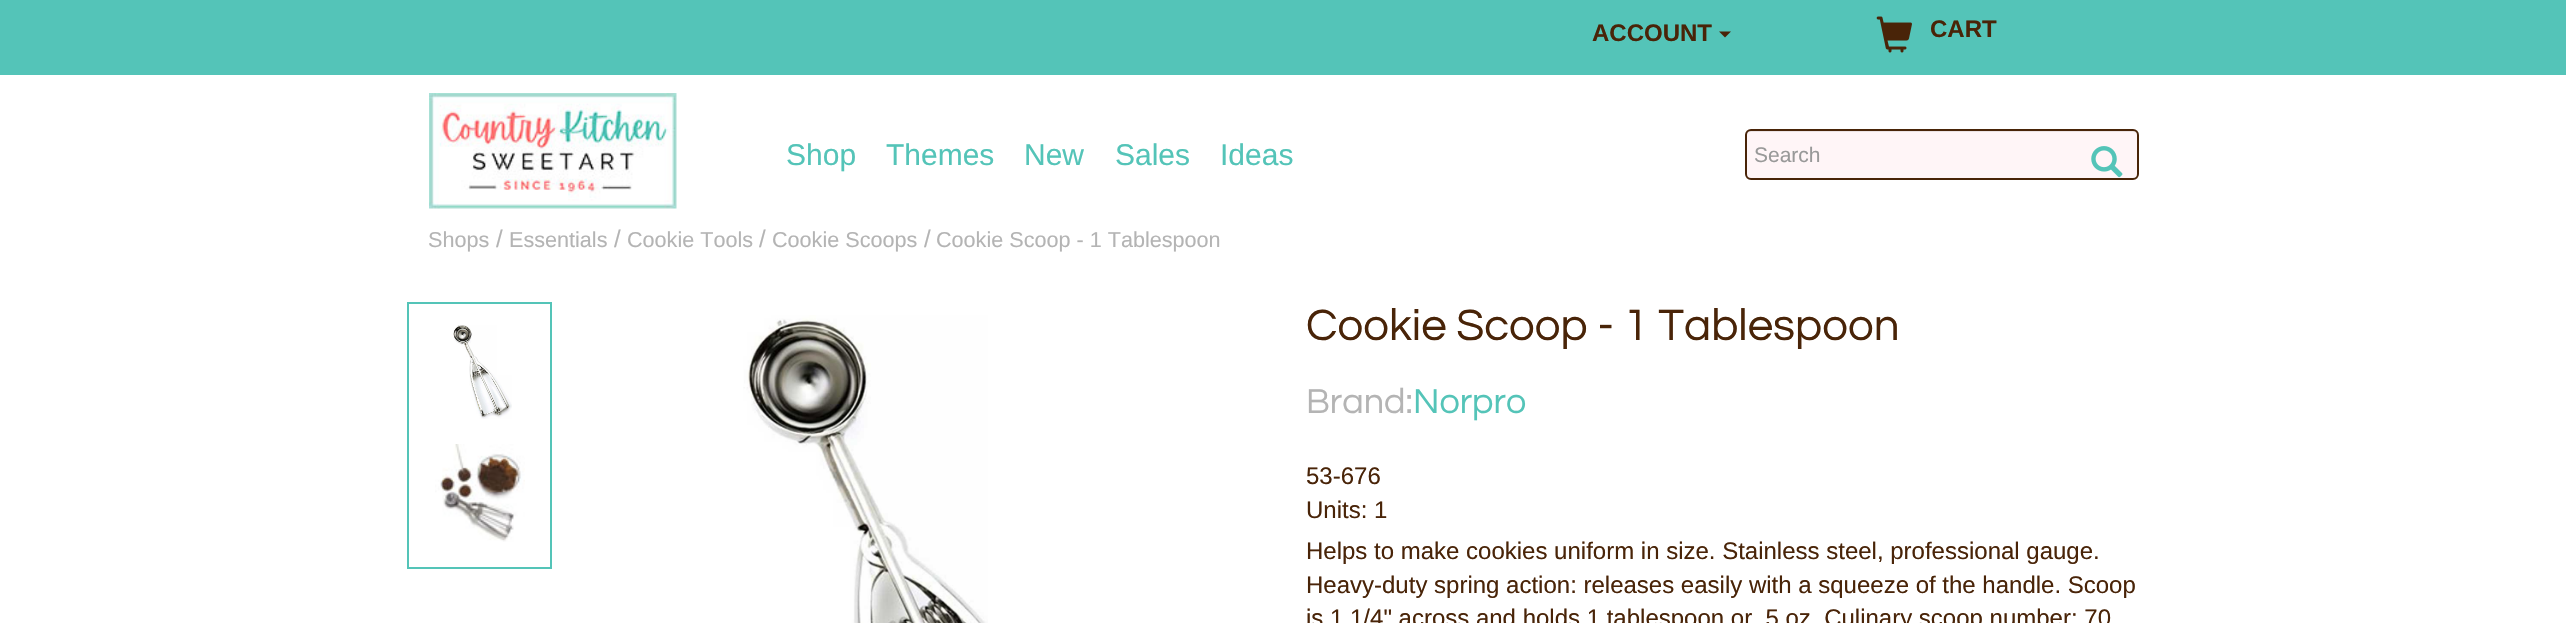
void draw(SkCanvas* c) {
SkPaint p;
p.setAntiAlias(true);
auto F=[&](const char* family, int weight, float size, bool italic = false){SkFontStyle style(weight, SkFontStyle::kNormal_Width,italic ? SkFontStyle::kItalic_Slant : SkFontStyle::kUpright_Slant);SkFont result(fontMgr->matchFamilyStyle(family, style), size);result.setSubpixel(true);return result;};
auto T=[&](const char* s, float x, float y, const SkFont& font){c->drawString(s, x, y, font, p);};
auto R=[&](float x, float y, float w, float h){c->drawRect(SkRect::MakeXYWH(x, y, w, h), p);};
auto Q=[&](float x, float y, float w, float h, float radius){c->drawRoundRect(SkRect::MakeXYWH(x, y, w, h), radius, radius, p);};
auto I=[&](const char* path, float x, float y, float w, float h){auto image = SkImages::DeferredFromEncodedData(SkData::MakeFromFileName(path));c->drawImageRect(image, SkRect::MakeXYWH(x, y, w, h), SkSamplingOptions());};
auto P=[&](const char* data, bool evenOdd = false){SkPath result = *SkParsePath::FromSVGString(data);if (evenOdd) result.setFillType(SkPathFillType::kEvenOdd);return result;};
c->clear(0xffffffff);
p.setColor(0xff54c4b8);
R(0,0,2566,75);
auto f1 = F("Liberation Sans",700,24);
p.setColor(0xff492408);
T("ACCOUNT",1592,41,f1);
c->drawPath(P("M1719 31.5h12l-6 6z"),p);
I("1.png",1876,16,36,37);
T("CART",1930,37,f1);
I("2.png",429,93,248,116);
auto f2 = F("Liberation Sans",400,30);
p.setColor(0xff54c4b8);
T("Shop",786,165,f2);
T("Themes",886,165,f2);
T("New",1024,165,f2);
T("Sales",1115,165,f2);
T("Ideas",1220,165,f2);
p.setColor(0xfffff5f7);
Q(1745,129,394,51,6);
p.setColor(0xffece3e4);
c->drawPath(P("M1750 132h383c2 0 5 2 5 4c0-3-2-5-5-5h-382c-3 0-5 2-5 5c0-2 2-4 4-4z"),p);
p.setStroke(true);
p.setStrokeWidth(2);
p.setColor(0xff492408);
c->drawRoundRect(SkRect::MakeXYWH(1746,130,392,49),5,5,p);
auto f3 = F("Liberation Sans",400,21);
p.setStroke(false);
p.setColor(0xff999999);
T("Search",1754,162,f3);
I("3.png",2091,146,32,32);
auto f4 = F("Liberation Sans",400,21.6);
p.setColor(0xffb4b4b4);
T("Shops",428,247,f4);
auto f5 = F("Liberation Sans",400,24);
T("/",496,247,f5);
T("Essentials",509,247,f4);
T("/",614,247,f5);
T("Cookie Tools",627,247,f4);
T("/",759,247,f5);
T("Cookie Scoops",772,247,f4);
T("/",924,247,f5);
T("Cookie Scoop - 1 Tablespoon",936,247,f4);
p.setStroke(true);
p.setColor(0xff54c4b8);
c->drawRect(SkRect::MakeXYWH(408,303,143,265),p);
I("4.png",453,325,59,94);
I("5.png",435,444,90,98);
I("6.png",743,315,245,308);
auto f6 = F("Questrial",400,45.6);
p.setStroke(false);
p.setColor(0xff492408);
T("Cookie Scoop - 1 Tablespoon",1306,340,f6);
auto f7 = F("Questrial",400,36);
p.setColor(0xffb4b4b4);
T("Brand:",1306,413,f7);
p.setColor(0xff54c4b8);
T("Norpro",1413,413,f7);
p.setColor(0xff492408);
T("53-676",1306,484,f5);
T("Units: 1",1306,518,f5);
T("Helps to make cookies uniform in size. Stainless steel, professional gauge.",1306,559,f5);
T("Heavy-duty spring action: releases easily with a squeeze of the handle. Scoop",1306,593,f5);
T("is 1 1/4\" across and holds 1 tablespoon or .5 oz. Culinary scoop number: 70",1306,626,f5);
}
